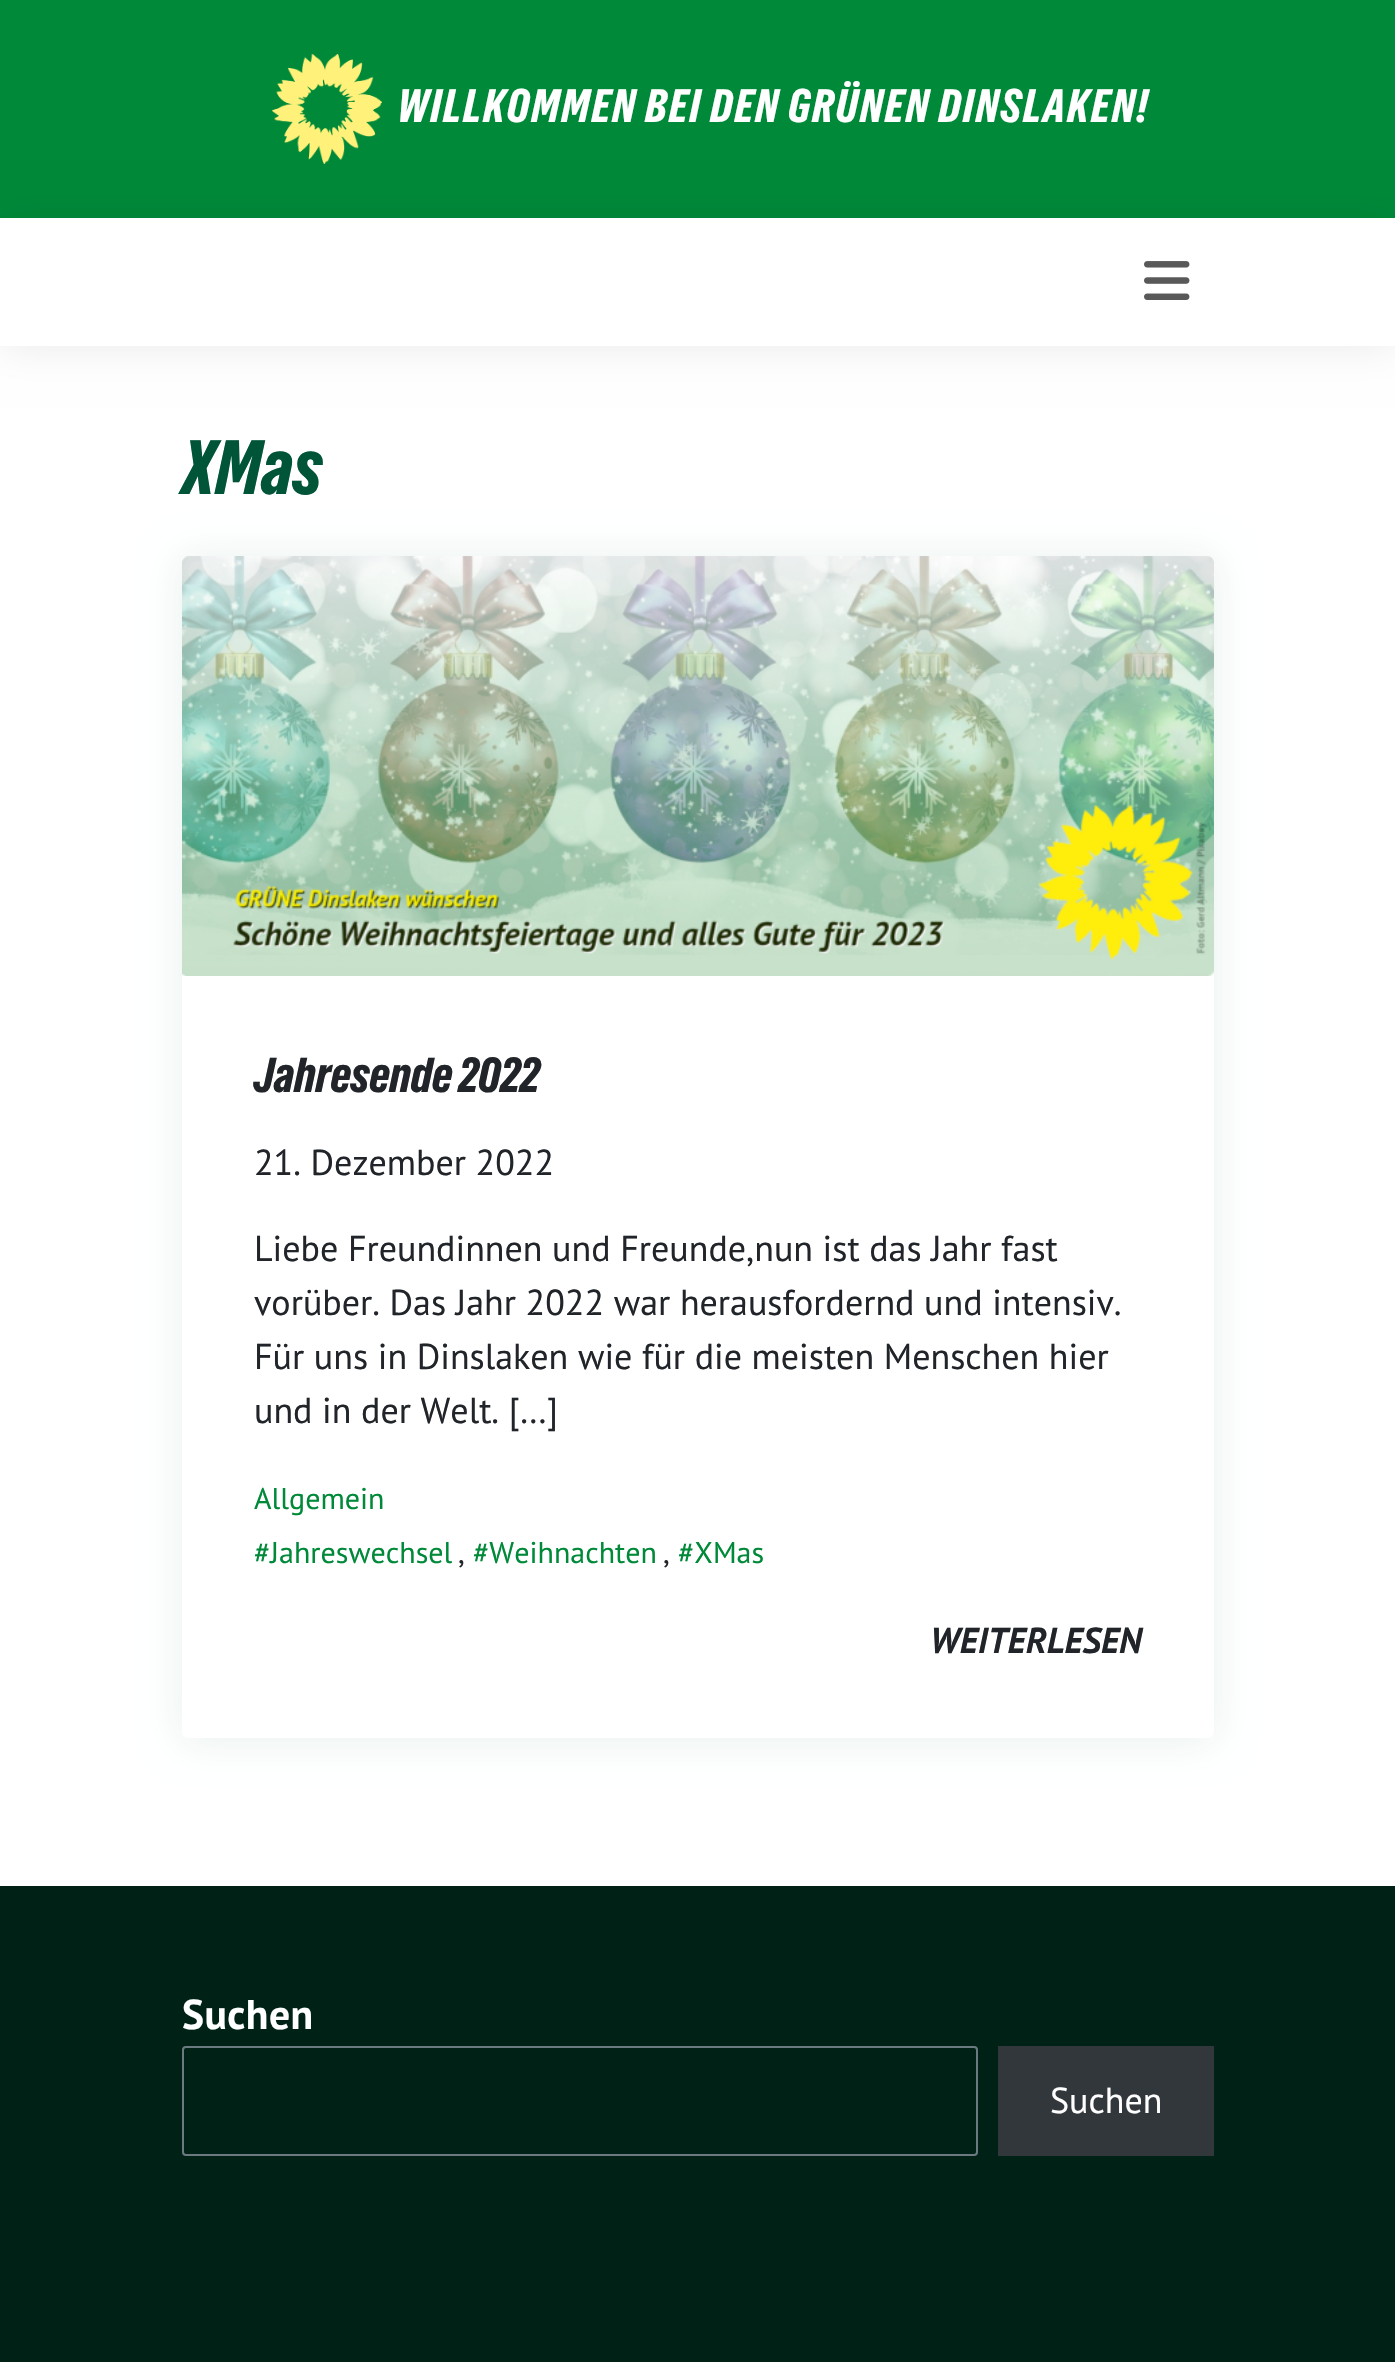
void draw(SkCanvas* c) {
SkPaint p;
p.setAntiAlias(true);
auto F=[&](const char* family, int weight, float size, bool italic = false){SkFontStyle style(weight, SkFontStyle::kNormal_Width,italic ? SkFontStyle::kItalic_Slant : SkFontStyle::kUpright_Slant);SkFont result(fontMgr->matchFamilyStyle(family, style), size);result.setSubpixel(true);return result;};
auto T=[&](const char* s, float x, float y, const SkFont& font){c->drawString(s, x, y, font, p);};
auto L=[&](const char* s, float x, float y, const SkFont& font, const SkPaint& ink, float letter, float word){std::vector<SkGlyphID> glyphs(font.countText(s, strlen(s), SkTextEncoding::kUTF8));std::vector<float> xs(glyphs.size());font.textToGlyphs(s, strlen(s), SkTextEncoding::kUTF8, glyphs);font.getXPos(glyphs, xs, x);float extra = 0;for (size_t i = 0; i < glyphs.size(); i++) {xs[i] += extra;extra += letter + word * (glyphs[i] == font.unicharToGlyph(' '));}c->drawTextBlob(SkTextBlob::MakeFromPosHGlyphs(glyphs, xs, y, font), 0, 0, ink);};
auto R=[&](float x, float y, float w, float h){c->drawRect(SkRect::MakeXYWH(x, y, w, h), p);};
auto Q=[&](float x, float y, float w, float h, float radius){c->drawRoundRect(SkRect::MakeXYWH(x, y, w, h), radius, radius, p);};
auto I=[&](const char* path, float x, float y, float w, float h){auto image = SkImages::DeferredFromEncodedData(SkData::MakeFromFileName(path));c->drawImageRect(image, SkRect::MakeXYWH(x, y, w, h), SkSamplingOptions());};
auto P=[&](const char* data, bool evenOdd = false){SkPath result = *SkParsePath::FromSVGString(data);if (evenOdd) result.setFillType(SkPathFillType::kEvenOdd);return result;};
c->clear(0xffffffff);
p.setColor(0xff008939);
R(0,0,1395,218);
I("1.png",272,54,110,110);
auto f1 = F("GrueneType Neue",400,44);
p.setColor(0xffffffff);
L("WILLKOMMEN BEI DEN GRÜNEN DINSLAKEN!",398,122,f1,p,2,0);
c->save();
c->clipPath(P("M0 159h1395v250h-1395zm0 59h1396v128h-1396z",true),true);
p.setColor(0x14000000);
p.setMaskFilter(SkMaskFilter::MakeBlur(kNormal_SkBlurStyle, 20));
c->drawRect(SkRect::MakeXYWH(0,220,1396,128),p);
p.setMaskFilter(nullptr);
c->restore();
I("2.png",1144,261,46,39);
auto f2 = F("GrueneType Neue",400,72);
p.setColor(0xff005437);
T("XMas",182,494,f2);
p.setColor(0x17005437);
p.setMaskFilter(SkMaskFilter::MakeBlur(kNormal_SkBlurStyle, 20));
c->drawRoundRect(SkRect::MakeXYWH(182,558,1032,1182),6,6,p);
p.setMaskFilter(nullptr);
p.setColor(0xffffffff);
Q(182,556,1032,1182,6);
I("3.png",182,556,1032,420);
auto f3 = F("GrueneType Neue",400,46);
p.setColor(0xff212529);
T("Jahresende 2022",254,1092,f3);
auto f4 = F("PT Sans",400,36);
T("21. Dezember 2022",254,1175,f4);
T("Liebe Freundinnen und Freunde,nun ist das Jahr fast",254,1261,f4);
T("vorüber. Das Jahr 2022 war herausfordernd und intensiv.",254,1315,f4);
T("Für uns in Dinslaken wie für die meisten Menschen hier",254,1369,f4);
T("und in der Welt. […]",254,1423,f4);
auto f5 = F("PT Sans",400,30);
p.setColor(0xff008939);
T("Allgemein",254,1509,f5);
T("#Jahreswechsel",254,1563,f5);
p.setColor(0xff212529);
T(",",458,1563,f5);
p.setColor(0xff008939);
T("#Weihnachten",473,1563,f5);
p.setColor(0xff212529);
T(",",663,1563,f5);
p.setColor(0xff008939);
T("#XMas",678,1563,f5);
auto f6 = F("PT Sans",700,36,true);
p.setColor(0xff212529);
T("WEITERLESEN",930,1653,f6);
p.setColor(0xff002216);
R(0,1886,1395,476);
auto f7 = F("PT Sans",700,41.5);
p.setColor(0xffffffff);
L("Suchen",182,2029,f7,p,.5,0);
p.setStroke(true);
p.setStrokeWidth(2);
p.setColor(0xff6b7a80);
c->drawRoundRect(SkRect::MakeXYWH(183,2047,794,108),3,3,p);
p.setStroke(false);
p.setColor(0xff32373c);
R(998,2046,216,110);
p.setColor(0xffffffff);
T("Suchen",1050,2113,f4);
}
